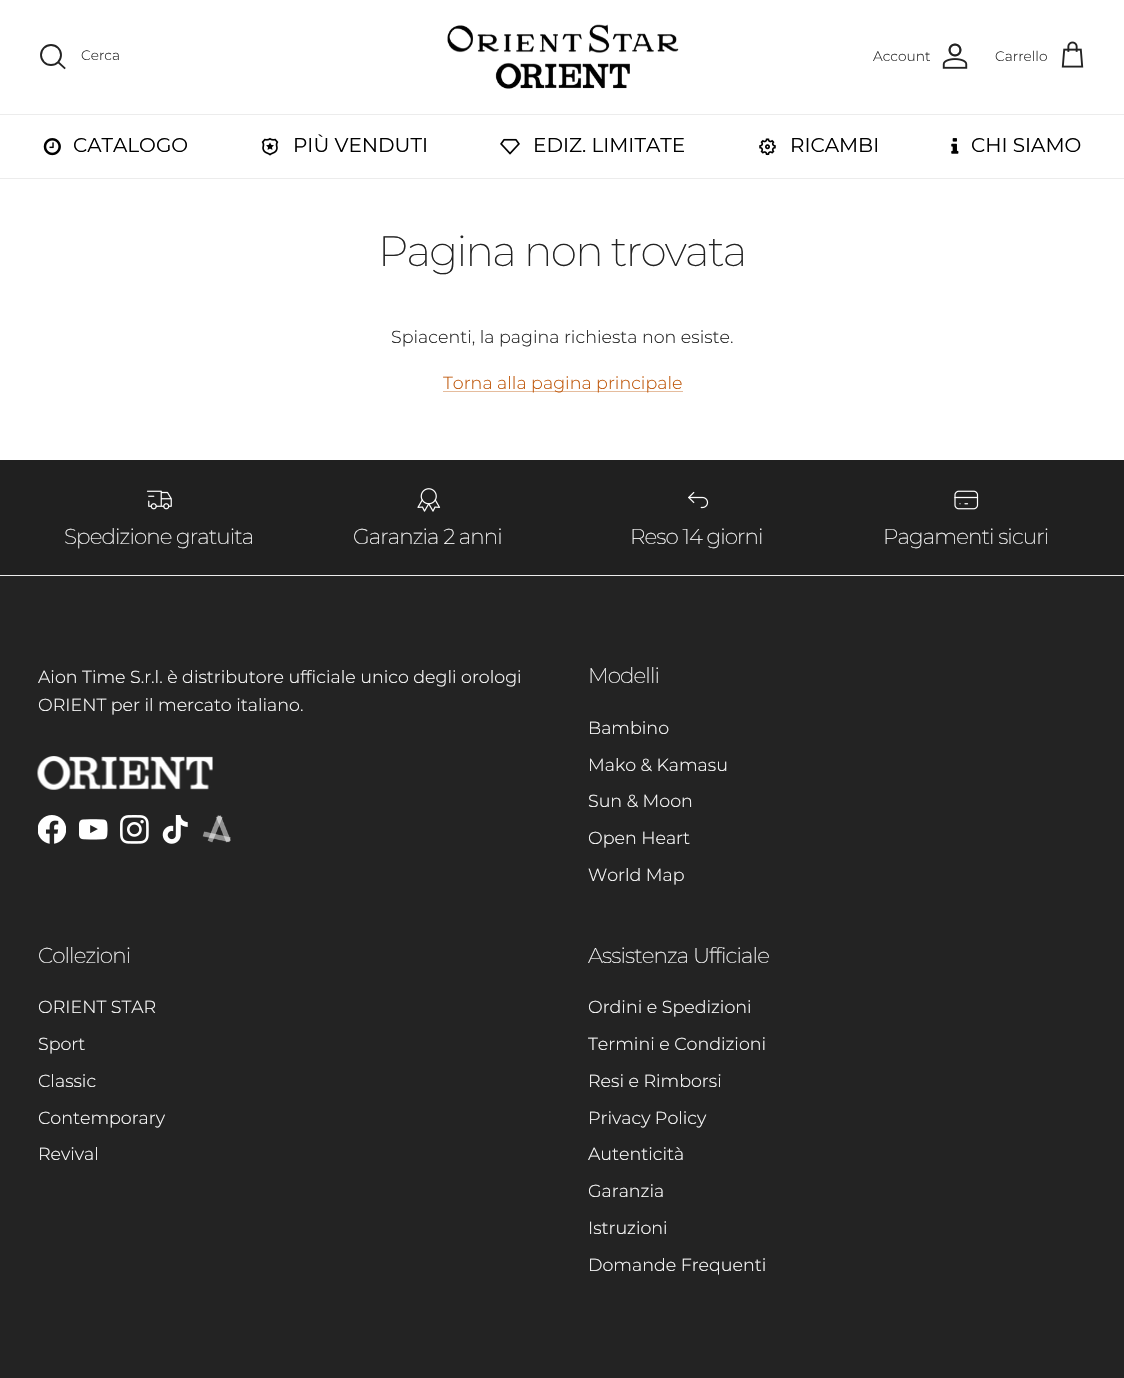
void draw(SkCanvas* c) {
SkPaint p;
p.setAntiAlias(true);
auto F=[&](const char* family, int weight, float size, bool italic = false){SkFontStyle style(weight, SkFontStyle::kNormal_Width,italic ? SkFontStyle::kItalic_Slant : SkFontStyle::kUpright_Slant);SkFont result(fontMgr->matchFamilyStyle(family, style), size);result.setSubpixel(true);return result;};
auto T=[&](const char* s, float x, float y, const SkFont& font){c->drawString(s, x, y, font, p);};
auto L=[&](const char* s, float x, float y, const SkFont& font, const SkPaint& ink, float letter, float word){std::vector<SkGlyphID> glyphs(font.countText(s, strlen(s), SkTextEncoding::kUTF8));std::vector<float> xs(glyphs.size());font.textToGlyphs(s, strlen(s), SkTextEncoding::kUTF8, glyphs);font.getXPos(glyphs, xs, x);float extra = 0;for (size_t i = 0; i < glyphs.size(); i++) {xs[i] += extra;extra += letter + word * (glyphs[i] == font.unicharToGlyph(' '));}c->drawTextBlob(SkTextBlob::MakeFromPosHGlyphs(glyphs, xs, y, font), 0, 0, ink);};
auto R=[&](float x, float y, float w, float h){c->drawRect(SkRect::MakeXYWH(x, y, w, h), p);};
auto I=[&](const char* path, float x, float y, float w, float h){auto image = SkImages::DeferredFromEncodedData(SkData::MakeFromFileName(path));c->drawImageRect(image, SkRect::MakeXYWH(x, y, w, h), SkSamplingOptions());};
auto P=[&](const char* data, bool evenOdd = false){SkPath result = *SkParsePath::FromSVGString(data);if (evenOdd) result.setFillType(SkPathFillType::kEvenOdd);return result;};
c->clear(0xffffffff);
p.setColor(0xffececec);
R(0,114,1124,1);
p.setStroke(true);
p.setStrokeWidth(1.9);
p.setColor(0xff232323);
c->drawCircle(51,55,10,p);
auto f1 = F("Montserrat",300,13.75);
p.setStroke(false);
T("Cerca",81,60,f1);
p.setStroke(true);
p.setStrokeCap(SkPaint::kSquare_Cap);
c->drawPath(P("M58.5 62.5l6 5.5"),p);
I("1.png",447,24,232,65);
p.setStroke(false);
T("Account",873,61,f1);
I("2.png",942,43,26,26);
T("Carrello",995,61,f1);
I("3.png",1061,41,23,27);
p.setColor(0xffececec);
R(0,178,1124,1);
I("4.png",43,138,18,18);
auto f2 = F("Montserrat",100,20);
p.setColor(0xff000000);
T("CATALOGO",73,152,f2);
I("5.png",261,137,18,19);
T("PIÙ VENDUTI",293,152,f2);
I("6.png",500,138,20,17);
T("EDIZ. LIMITATE",533,152,f2);
I("7.png",759,138,17,18);
T("RICAMBI",790,152,f2);
I("8.png",951,138,8,16);
T("CHI SIAMO",971,152,f2);
auto f3 = F("Montserrat",200,42.5);
p.setColor(0xff232323);
L("Pagina non trovata",378,266,f3,p,-1.75,0);
auto f4 = F("Montserrat",300,17.5);
T("Spiacenti, la pagina richiesta non esiste.",391,343,f4);
p.setColor(0xffe5bc9d);
R(443,391,240,1);
p.setColor(0xffbf570a);
T("Torna alla pagina principale",443,389,f4);
p.setColor(0xff202020);
R(0,460,1124,115);
I("9.png",146,490,26,20);
auto f5 = F("Montserrat",200,21.5);
p.setColor(0xffffffff);
L("Spedizione gratuita",64,544,f5,p,-.9,0);
I("10.png",417,488,24,24);
L("Garanzia 2 anni",353,544,f5,p,-.9,0);
I("11.png",688,491,21,18);
L("Reso 14 giorni",630,544,f5,p,-.9,0);
I("12.png",954,490,25,20);
L("Pagamenti sicuri",883,544,f5,p,-.9,0);
p.setColor(0xff232323);
R(0,576,1124,802);
p.setColor(0xffececec);
R(0,575,1124,1);
p.setColor(0xffffffff);
T("Aion Time S.r.l. è distributore ufficiale unico degli orologi",38,683,f4);
T("ORIENT per il mercato italiano.",38,711,f4);
I("13.png",37,756,176,34);
I("14.png",38,815,28,29);
I("15.png",79,819,29,21);
I("16.png",120,815,29,29);
I("17.png",162,815,26,29);
I("18.png",202,815,29,28);
L("Modelli",588,683,f5,p,-.9,0);
T("Bambino",588,734,f4);
T("Mako & Kamasu",588,771,f4);
T("Sun & Moon",588,807,f4);
T("Open Heart",588,844,f4);
T("World Map",588,881,f4);
L("Collezioni",38,963,f5,p,-.9,0);
T("ORIENT STAR",38,1013,f4);
T("Sport",38,1050,f4);
T("Classic",38,1087,f4);
T("Contemporary",38,1124,f4);
T("Revival",38,1160,f4);
L("Assistenza Ufficiale",588,963,f5,p,-.9,0);
T("Ordini e Spedizioni",588,1013,f4);
T("Termini e Condizioni",588,1050,f4);
T("Resi e Rimborsi",588,1087,f4);
T("Privacy Policy",588,1124,f4);
T("Autenticità",588,1160,f4);
T("Garanzia",588,1197,f4);
T("Istruzioni",588,1234,f4);
T("Domande Frequenti",588,1271,f4);
}
